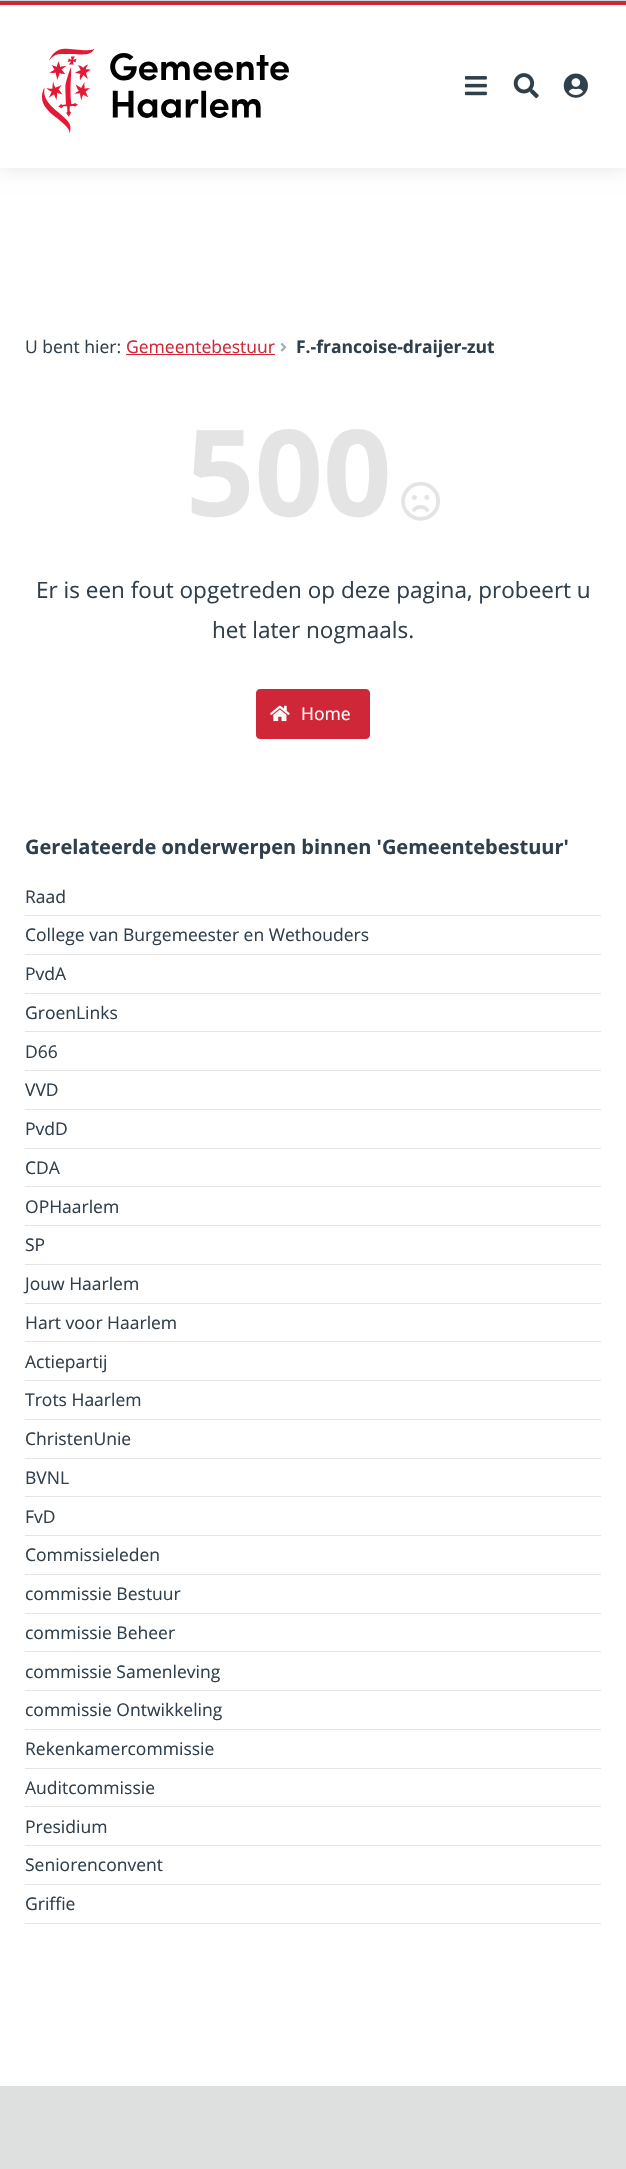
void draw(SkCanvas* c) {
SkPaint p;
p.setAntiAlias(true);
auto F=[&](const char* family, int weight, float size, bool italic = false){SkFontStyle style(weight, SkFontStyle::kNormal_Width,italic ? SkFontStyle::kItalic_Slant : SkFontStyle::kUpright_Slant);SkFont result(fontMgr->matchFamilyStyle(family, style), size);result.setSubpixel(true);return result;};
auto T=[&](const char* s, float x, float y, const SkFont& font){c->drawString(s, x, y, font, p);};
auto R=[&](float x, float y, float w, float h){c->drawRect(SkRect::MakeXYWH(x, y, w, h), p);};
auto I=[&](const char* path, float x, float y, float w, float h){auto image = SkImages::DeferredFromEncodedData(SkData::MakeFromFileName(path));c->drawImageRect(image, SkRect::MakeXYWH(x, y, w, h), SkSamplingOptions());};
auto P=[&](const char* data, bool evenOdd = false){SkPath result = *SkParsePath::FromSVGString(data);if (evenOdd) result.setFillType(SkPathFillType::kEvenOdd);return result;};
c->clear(0xffffffff);
c->save();
c->clipPath(P("M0 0h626v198h-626zm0 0h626v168h-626z",true),true);
p.setColor(0x1a000000);
p.setMaskFilter(SkMaskFilter::MakeBlur(kNormal_SkBlurStyle, 9.5));
c->drawRect(SkRect::MakeXYWH(0,0,626,168),p);
p.setMaskFilter(nullptr);
c->restore();
p.setStroke(true);
p.setStrokeWidth(1);
p.setColor(0xffcdd6de);
c->drawRect(SkRect::MakeXYWH(-.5,-.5,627,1),p);
p.setStroke(false);
p.setColor(0xffd02738);
R(0,1,626,4);
I("1.png",42,48,247,86);
I("2.png",465,76,22,20);
I("3.png",513,73,26,26);
I("4.png",563,73,25,25);
auto f1 = F("Open Sans",400,17.5);
p.setColor(0xff303f4c);
T("U bent hier:",25,353,f1);
p.setColor(0xffd02738);
T("Gemeentebestuur",126,353,f1);
R(126,354,149,1);
I("5.png",280,343,7,9);
auto f2 = F("Open Sans",700,17.5);
p.setColor(0xff303f4c);
T("F.-francoise-draijer-zut",296,353,f2);
auto f3 = F("Open Sans",700,120);
p.setColor(0xffe4e4e4);
T("500",186,516,f3);
I("6.png",401,482,39,39);
auto f4 = F("Open Sans",400,22.5);
p.setColor(0xff303f4c);
T("Er is een fout opgetreden op deze pagina, probeert u",36,598,f4);
T("het later nogmaals.",212,638,f4);
p.setColor(0xffd02738);
c->drawRoundRect(SkRect::MakeXYWH(256.5,689.5,113,49),3.5,3.5,p);
p.setStroke(true);
c->drawRoundRect(SkRect::MakeXYWH(256.5,689.5,113,49),3.5,3.5,p);
I("7.png",270,705,20,17);
p.setStroke(false);
p.setColor(0xffffffff);
T("Home",301,720,f1);
auto f5 = F("Open Sans",700,20);
p.setColor(0xff303f4c);
T("Gerelateerde onderwerpen binnen 'Gemeentebestuur'",25,854,f5);
p.setColor(0xffe4e4e4);
R(25,915,576,1);
p.setColor(0xff303f4c);
T("Raad",25,903,f1);
p.setColor(0xffe4e4e4);
R(25,954,576,1);
p.setColor(0xff303f4c);
T("College van Burgemeester en Wethouders",25,941,f1);
p.setColor(0xffe4e4e4);
R(25,993,576,1);
p.setColor(0xff303f4c);
T("PvdA",25,980,f1);
p.setColor(0xffe4e4e4);
R(25,1031,576,1);
p.setColor(0xff303f4c);
T("GroenLinks",25,1019,f1);
p.setColor(0xffe4e4e4);
R(25,1070,576,1);
p.setColor(0xff303f4c);
T("D66",25,1058,f1);
p.setColor(0xffe4e4e4);
R(25,1109,576,1);
p.setColor(0xff303f4c);
T("VVD",25,1096,f1);
p.setColor(0xffe4e4e4);
R(25,1148,576,1);
p.setColor(0xff303f4c);
T("PvdD",25,1135,f1);
p.setColor(0xffe4e4e4);
R(25,1186,576,1);
p.setColor(0xff303f4c);
T("CDA",25,1174,f1);
p.setColor(0xffe4e4e4);
R(25,1225,576,1);
p.setColor(0xff303f4c);
T("OPHaarlem",25,1213,f1);
p.setColor(0xffe4e4e4);
R(25,1264,576,1);
p.setColor(0xff303f4c);
T("SP",25,1251,f1);
p.setColor(0xffe4e4e4);
R(25,1303,576,1);
p.setColor(0xff303f4c);
T("Jouw Haarlem",25,1290,f1);
p.setColor(0xffe4e4e4);
R(25,1341,576,1);
p.setColor(0xff303f4c);
T("Hart voor Haarlem",25,1329,f1);
p.setColor(0xffe4e4e4);
R(25,1380,576,1);
p.setColor(0xff303f4c);
T("Actiepartij",25,1368,f1);
p.setColor(0xffe4e4e4);
R(25,1419,576,1);
p.setColor(0xff303f4c);
T("Trots Haarlem",25,1406,f1);
p.setColor(0xffe4e4e4);
R(25,1458,576,1);
p.setColor(0xff303f4c);
T("ChristenUnie",25,1445,f1);
p.setColor(0xffe4e4e4);
R(25,1496,576,1);
p.setColor(0xff303f4c);
T("BVNL",25,1484,f1);
p.setColor(0xffe4e4e4);
R(25,1535,576,1);
p.setColor(0xff303f4c);
T("FvD",25,1523,f1);
p.setColor(0xffe4e4e4);
R(25,1574,576,1);
p.setColor(0xff303f4c);
T("Commissieleden",25,1561,f1);
p.setColor(0xffe4e4e4);
R(25,1613,576,1);
p.setColor(0xff303f4c);
T("commissie Bestuur",25,1600,f1);
p.setColor(0xffe4e4e4);
R(25,1651,576,1);
p.setColor(0xff303f4c);
T("commissie Beheer",25,1639,f1);
p.setColor(0xffe4e4e4);
R(25,1690,576,1);
p.setColor(0xff303f4c);
T("commissie Samenleving",25,1678,f1);
p.setColor(0xffe4e4e4);
R(25,1729,576,1);
p.setColor(0xff303f4c);
T("commissie Ontwikkeling",25,1716,f1);
p.setColor(0xffe4e4e4);
R(25,1768,576,1);
p.setColor(0xff303f4c);
T("Rekenkamercommissie",25,1755,f1);
p.setColor(0xffe4e4e4);
R(25,1806,576,1);
p.setColor(0xff303f4c);
T("Auditcommissie",25,1794,f1);
p.setColor(0xffe4e4e4);
R(25,1845,576,1);
p.setColor(0xff303f4c);
T("Presidium",25,1833,f1);
p.setColor(0xffe4e4e4);
R(25,1884,576,1);
p.setColor(0xff303f4c);
T("Seniorenconvent",25,1871,f1);
p.setColor(0xffe4e4e4);
R(25,1923,576,1);
p.setColor(0xff303f4c);
T("Griffie",25,1910,f1);
p.setColor(0xffdedfdf);
R(0,2086,626,83);
}
